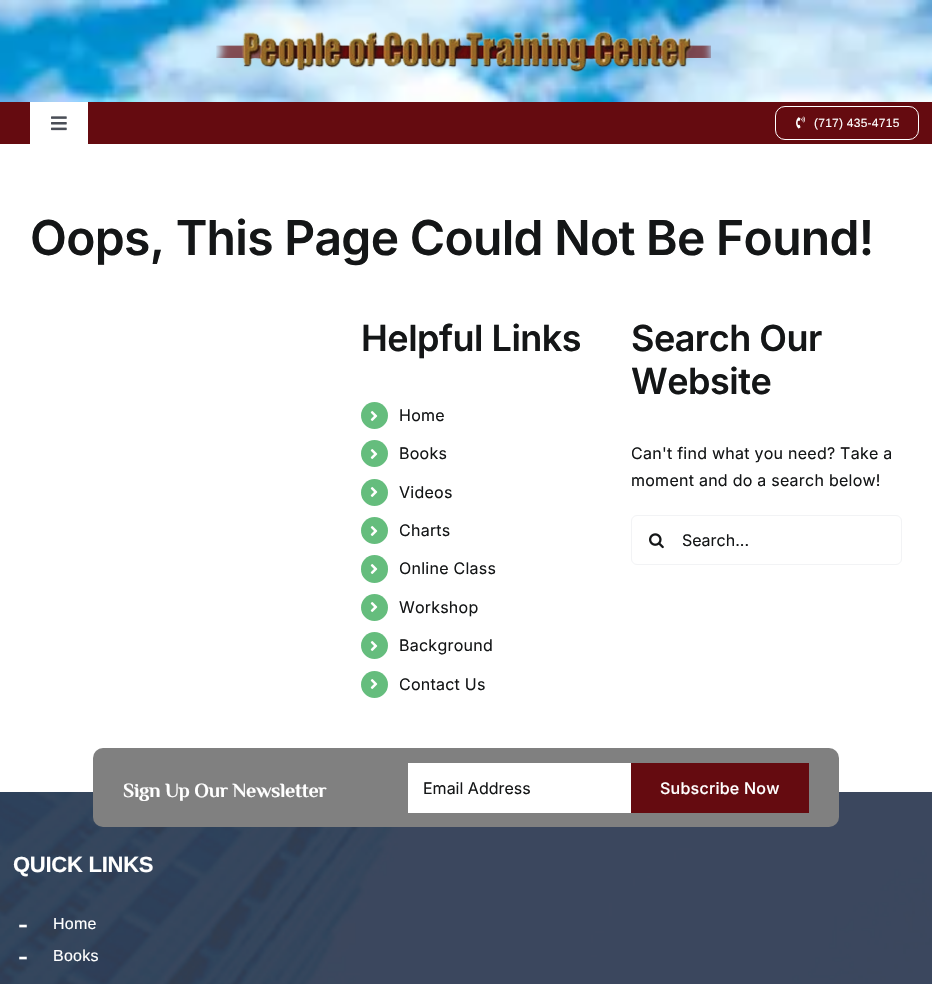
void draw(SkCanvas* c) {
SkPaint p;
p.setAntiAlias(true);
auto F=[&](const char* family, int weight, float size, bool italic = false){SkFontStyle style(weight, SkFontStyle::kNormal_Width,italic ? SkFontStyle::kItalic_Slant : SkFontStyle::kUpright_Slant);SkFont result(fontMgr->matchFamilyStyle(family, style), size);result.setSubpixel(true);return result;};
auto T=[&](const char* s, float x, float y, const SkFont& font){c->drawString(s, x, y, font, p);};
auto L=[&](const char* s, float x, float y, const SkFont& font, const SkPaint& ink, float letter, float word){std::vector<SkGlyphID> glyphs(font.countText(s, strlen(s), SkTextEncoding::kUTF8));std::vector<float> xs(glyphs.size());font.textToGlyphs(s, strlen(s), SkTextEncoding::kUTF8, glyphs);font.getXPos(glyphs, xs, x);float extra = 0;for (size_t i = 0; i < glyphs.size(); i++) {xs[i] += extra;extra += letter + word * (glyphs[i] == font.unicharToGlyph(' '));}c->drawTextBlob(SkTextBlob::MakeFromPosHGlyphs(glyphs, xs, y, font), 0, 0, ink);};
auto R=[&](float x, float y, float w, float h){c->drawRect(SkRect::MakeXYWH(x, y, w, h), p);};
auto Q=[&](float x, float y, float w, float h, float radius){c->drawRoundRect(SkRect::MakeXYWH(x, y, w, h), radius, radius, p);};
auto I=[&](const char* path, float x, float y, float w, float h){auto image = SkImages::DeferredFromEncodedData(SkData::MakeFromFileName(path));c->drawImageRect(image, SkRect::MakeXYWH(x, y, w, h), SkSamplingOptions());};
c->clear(0xffffffff);
I("1.png",0,0,932,102);
I("2.png",216,31,495,41);
p.setColor(0xff650b10);
R(0,102,932,42);
p.setColor(0xffffffff);
R(30,102,58,42);
I("3.png",51,116,16,15);
p.setStroke(true);
p.setStrokeWidth(1);
c->drawRoundRect(SkRect::MakeXYWH(775.5,106.5,143,33),9.5,9.5,p);
I("4.png",796,116,9,13);
auto f1 = F("Liberation Sans",400,12);
p.setStroke(false);
L("(717) 435-4715",814,127,f1,p,.25,0);
auto f2 = F("Inter",600,48);
p.setColor(0xff141617);
L("Oops, This Page Could Not Be Found!",30,255,f2,p,-.7,0);
auto f3 = F("Inter",600,36);
L("Helpful Links",361,351,f3,p,-.5,0);
p.setColor(0xff65bd7d);
c->drawCircle(374.5,415.5,13.5,p);
I("5.png",370,411,8,10);
auto f4 = F("Inter",400,16);
p.setColor(0xff141617);
L("Home",399,421,f4,p,.25,0);
p.setColor(0xff65bd7d);
c->drawCircle(374.5,453.5,13.5,p);
I("5.png",370,449,8,10);
p.setColor(0xff141617);
L("Books",399,459,f4,p,.25,0);
p.setColor(0xff65bd7d);
c->drawCircle(374.5,492.5,13.5,p);
I("5.png",370,487,8,10);
p.setColor(0xff141617);
L("Videos",399,498,f4,p,.25,0);
p.setColor(0xff65bd7d);
c->drawCircle(374.5,530.5,13.5,p);
I("5.png",370,526,8,10);
p.setColor(0xff141617);
L("Charts",399,536,f4,p,.25,0);
p.setColor(0xff65bd7d);
Q(361,555,27,28,13.5);
I("5.png",370,564,8,10);
p.setColor(0xff141617);
L("Online Class",399,574,f4,p,.25,0);
p.setColor(0xff65bd7d);
c->drawCircle(374.5,607.5,13.5,p);
I("5.png",370,602,8,10);
p.setColor(0xff141617);
L("Workshop",399,613,f4,p,.25,0);
p.setColor(0xff65bd7d);
c->drawCircle(374.5,645.5,13.5,p);
I("5.png",370,641,8,10);
p.setColor(0xff141617);
L("Background",399,651,f4,p,.25,0);
p.setColor(0xff65bd7d);
c->drawCircle(374.5,684.5,13.5,p);
I("5.png",370,679,8,10);
p.setColor(0xff141617);
L("Contact Us",399,690,f4,p,.25,0);
L("Search Our",631,351,f3,p,-.5,0);
L("Website",631,394,f3,p,-.5,0);
L("Can't find what you need? Take a",631,459,f4,p,.25,0);
L("moment and do a search below!",631,486,f4,p,.25,0);
p.setStroke(true);
p.setColor(0xfff2f3f5);
c->drawRoundRect(SkRect::MakeXYWH(631.5,515.5,270,49),5.5,5.5,p);
I("6.png",649,533,15,16);
p.setStroke(false);
p.setColor(0xff141617);
T("Search...",682,546,f4);
I("7.png",0,792,932,192);
p.setColor(0xff808080);
Q(93,748,746,79,10);
auto f5 = F("Philosopher",700,20);
p.setColor(0xffffffff);
L("Sign Up Our Newsletter",123,797,f5,p,-.3,0);
R(408,763,223,50);
p.setColor(0xff141617);
T("Email Address",423,794,f4);
p.setColor(0xff650b10);
R(631,763,178,50);
auto f6 = F("Inter",500,16);
p.setColor(0xffffffff);
L("Subscribe Now",660,794,f6,p,.25,0);
auto f7 = F("Liberation Sans",700,22);
L("QUICK LINKS",13,872,f7,p,-.25,0);
auto f8 = F("Liberation Sans",400,30);
L("-",18,934,f8,p,.25,0);
auto f9 = F("Liberation Sans",400,16);
L("Home",53,929,f9,p,.25,0);
L("-",18,966,f8,p,.25,0);
L("Books",53,961,f9,p,.25,0);
}
